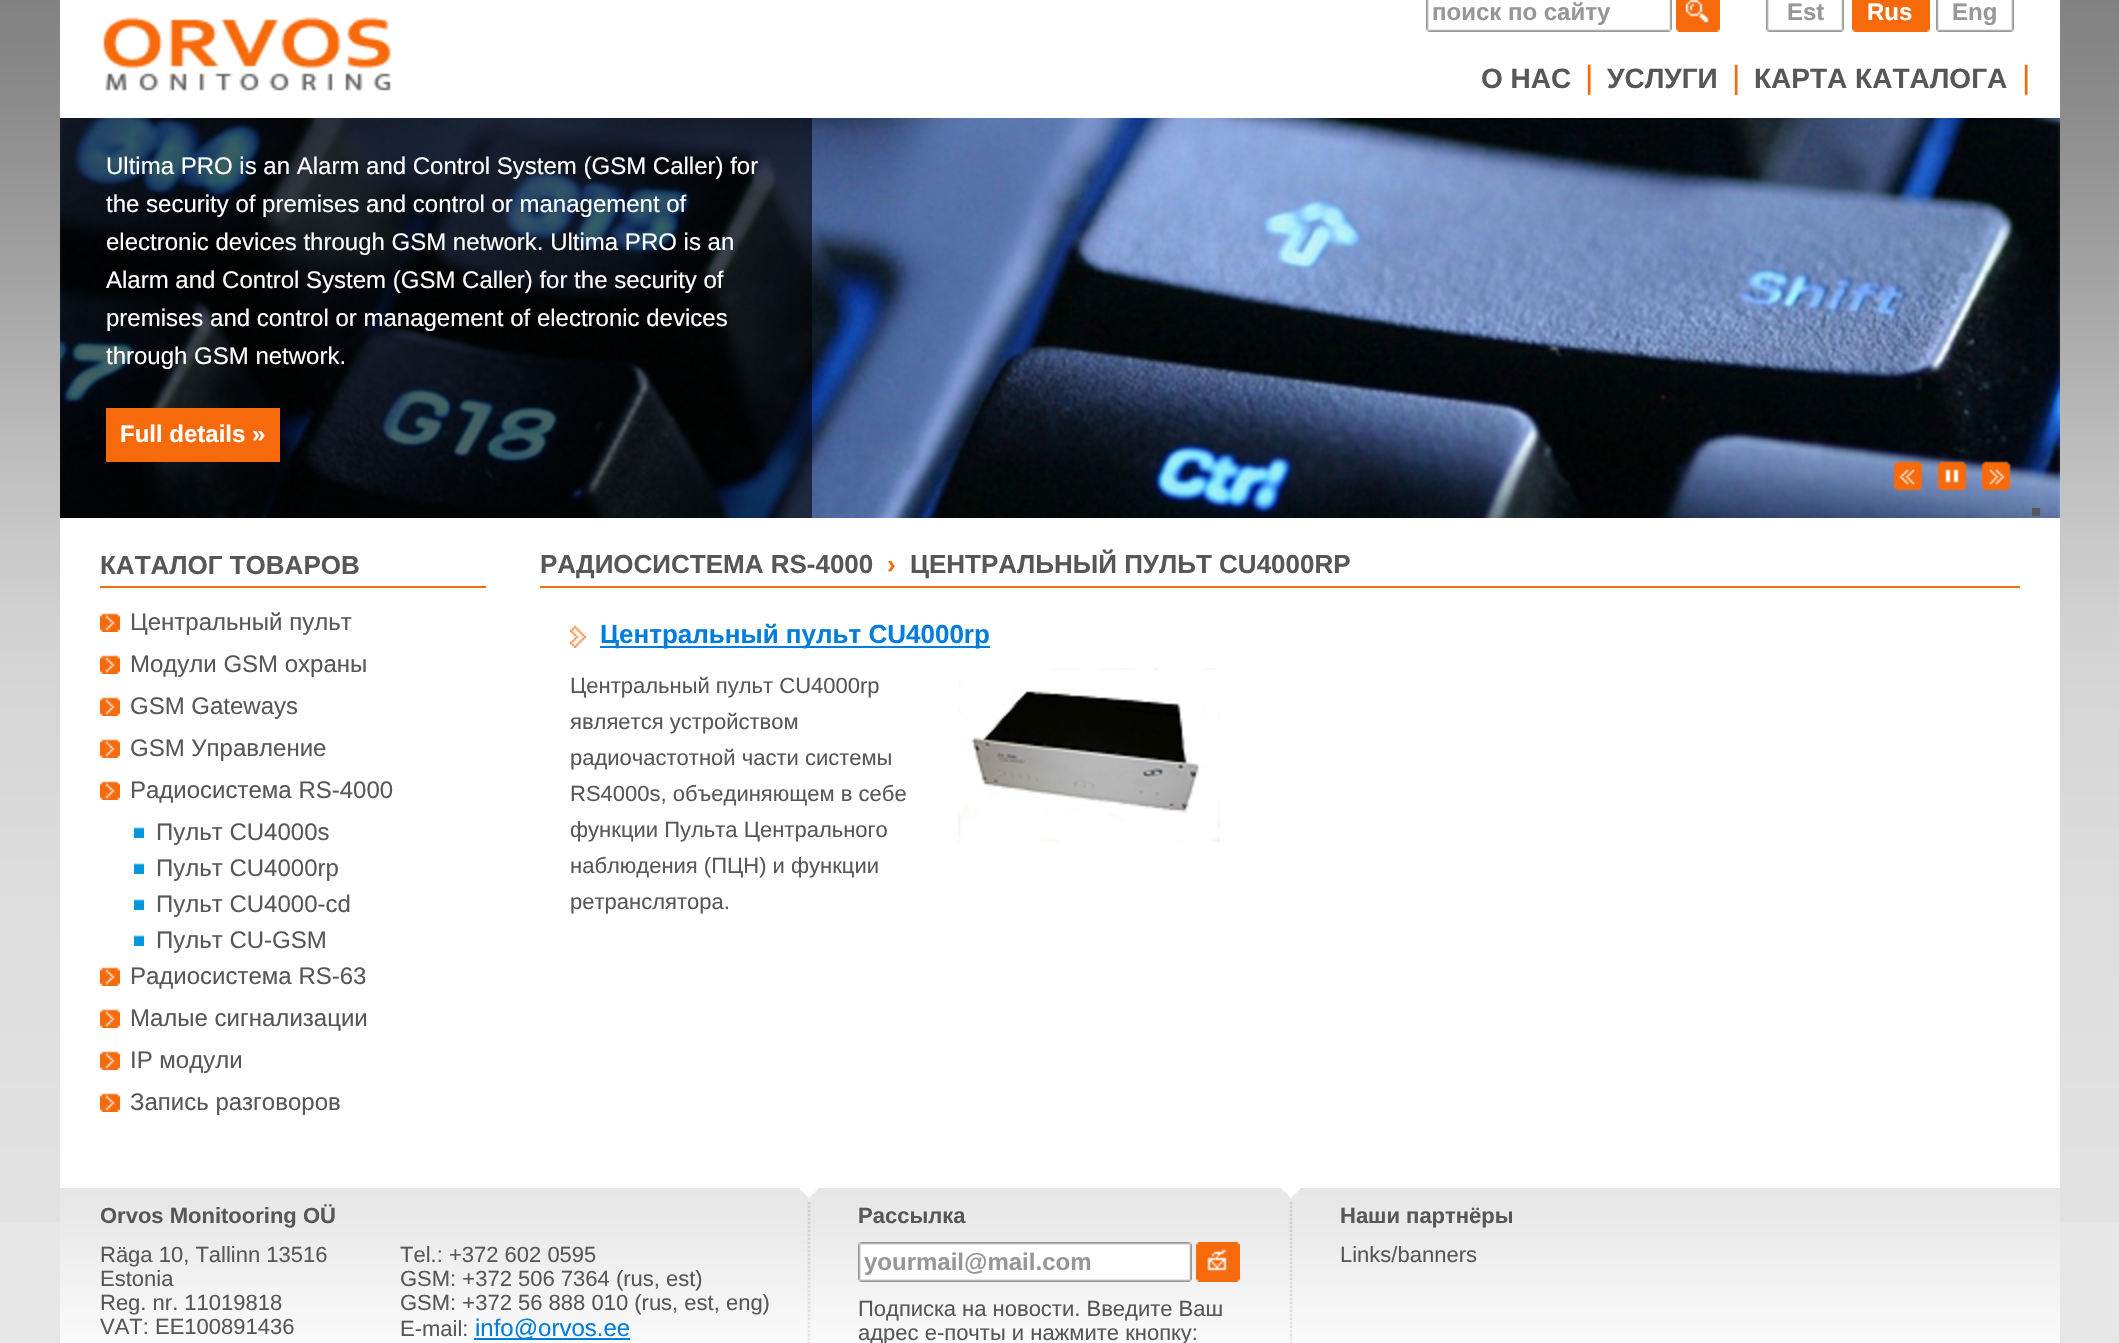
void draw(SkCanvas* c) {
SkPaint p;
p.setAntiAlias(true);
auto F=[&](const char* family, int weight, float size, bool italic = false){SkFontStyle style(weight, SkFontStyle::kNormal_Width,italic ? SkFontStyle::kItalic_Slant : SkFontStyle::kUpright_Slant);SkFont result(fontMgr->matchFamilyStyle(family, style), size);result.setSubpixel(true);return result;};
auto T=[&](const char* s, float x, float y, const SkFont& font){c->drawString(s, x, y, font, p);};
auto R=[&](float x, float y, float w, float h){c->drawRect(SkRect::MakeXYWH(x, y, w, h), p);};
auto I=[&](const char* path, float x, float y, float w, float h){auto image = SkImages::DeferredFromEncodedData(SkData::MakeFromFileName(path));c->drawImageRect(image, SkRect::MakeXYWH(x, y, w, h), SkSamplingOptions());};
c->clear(0xffe7e7e7);
I("1.png",0,0,2119,1222);
p.setColor(0xffffffff);
R(60,0,2000,1343);
I("2.png",1426,0,246,32);
auto f1 = F("Liberation Sans",700,24);
p.setColor(0xff979797);
T("поиск по сайту",1432,20,f1);
I("3.png",1676,0,44,32);
p.setColor(0xffefefef);
R(1766,29,78,3);
I("4.png",1766,0,78,32);
p.setColor(0xff979797);
T("Est",1787,20,f1);
p.setColor(0xffefefef);
R(1852,29,78,3);
I("5.png",1852,0,78,32);
p.setColor(0xffffffff);
T("Rus",1867,20,f1);
p.setColor(0xffefefef);
R(1936,29,78,3);
I("4.png",1936,0,78,32);
p.setColor(0xff979797);
T("Eng",1952,20,f1);
I("6.png",103,17,288,74);
auto f2 = F("Liberation Sans",700,28);
p.setColor(0xff575757);
T("О НАС",1481,88,f2);
auto f3 = F("Liberation Sans",400,32);
p.setColor(0xfff66a0c);
T("|",1585,88,f3);
p.setColor(0xff575757);
T("УСЛУГИ",1607,88,f2);
p.setColor(0xfff66a0c);
T("|",1732,88,f3);
p.setColor(0xff575757);
T("КАРТА КАТАЛОГА",1754,88,f2);
p.setColor(0xfff66a0c);
T("|",2022,88,f3);
I("7.png",60,118,2000,400);
p.setColor(0xff575757);
R(2032,508,8,8);
p.setColor(0x99000000);
R(60,118,752,400);
auto f4 = F("Liberation Sans",400,24);
p.setColor(0xffffffff);
T("Ultima PRO is an Alarm and Control System (GSM Caller) for",106,174,f4);
T("the security of premises and control or management of",106,212,f4);
T("electronic devices through GSM network. Ultima PRO is an",106,250,f4);
T("Alarm and Control System (GSM Caller) for the security of",106,288,f4);
T("premises and control or management of electronic devices",106,326,f4);
T("through GSM network.",106,364,f4);
p.setColor(0xfff66a0c);
R(106,408,174,54);
p.setColor(0xffffffff);
T("Full details »",120,442,f1);
I("8.png",1893,461,30,30);
I("9.png",1937,461,30,30);
I("10.png",1981,461,30,30);
p.setColor(0xfff66a0c);
R(100,586,386,2);
auto f5 = F("Liberation Sans",700,26);
p.setColor(0xff575757);
T("КАТАЛОГ ТОВАРОВ",100,574,f5);
I("11.png",100,613,20,19);
T("Центральный пульт",130,630,f4);
I("11.png",100,655,20,19);
T("Модули GSM охраны",130,672,f4);
I("11.png",100,697,20,19);
T("GSM Gateways",130,714,f4);
I("11.png",100,739,20,19);
T("GSM Управление",130,756,f4);
I("11.png",100,781,20,19);
T("Радиосистема RS-4000",130,798,f4);
I("12.png",134,827,10,11);
T("Пульт CU4000s",156,840,f4);
I("12.png",134,863,10,11);
T("Пульт CU4000rp",156,876,f4);
I("12.png",134,899,10,11);
T("Пульт CU4000-cd",156,912,f4);
I("12.png",134,935,10,11);
T("Пульт CU-GSM",156,948,f4);
I("11.png",100,967,20,19);
T("Радиосистема RS-63",130,984,f4);
I("11.png",100,1009,20,19);
T("Малые сигнализации",130,1026,f4);
I("11.png",100,1051,20,19);
T("IP модули",130,1068,f4);
I("11.png",100,1093,20,19);
T("Запись разговоров",130,1110,f4);
p.setColor(0xfff66a0c);
R(540,586,1480,2);
p.setColor(0xff575757);
T("РАДИОСИСТЕМА RS-4000",540,573,f5);
p.setColor(0xfff66a0c);
T("›",887,573,f5);
p.setColor(0xff575757);
T("ЦЕНТРАЛЬНЫЙ ПУЛЬТ CU4000RP",910,573,f5);
I("13.png",570,625,16,23);
p.setColor(0xff007dde);
R(600,646,390,2);
T("Центральный пульт CU4000rp",600,643,f5);
auto f6 = F("Liberation Sans",400,22);
p.setColor(0xff575757);
T("Центральный пульт CU4000rp",570,693,f6);
I("14.png",958,668,262,174);
T("является устройством",570,729,f6);
T("радиочастотной части системы",570,765,f6);
T("RS4000s, объединяющем в себе",570,801,f6);
T("функции Пульта Центрального",570,837,f6);
T("наблюдения (ПЦН) и функции",570,873,f6);
T("ретранслятора.",570,909,f6);
I("15.png",60,1188,2000,154);
auto f7 = F("Liberation Sans",700,22);
T("Orvos Monitooring OÜ",100,1223,f7);
I("16.png",800,1188,18,155);
T("Рассылка",858,1223,f7);
I("16.png",1282,1188,18,155);
T("Наши партнёры",1340,1223,f7);
T("Räga 10, Tallinn 13516",100,1262,f6);
T("Estonia",100,1286,f6);
T("Reg. nr. 11019818",100,1310,f6);
T("VAT: EE100891436",100,1334,f6);
T("Tel.: +372 602 0595",400,1262,f6);
T("GSM: +372 506 7364 (rus, est)",400,1286,f6);
T("GSM: +372 56 888 010 (rus, est, eng)",400,1310,f6);
T("E-mail:",400,1336,f6);
p.setColor(0xff007dde);
R(474,1338,156,2);
T("info@orvos.ee",475,1336,f4);
I("17.png",858,1242,334,40);
p.setColor(0xff979797);
T("yourmail@mail.com",864,1270,f1);
I("18.png",1196,1242,44,40);
p.setColor(0xff575757);
T("Подписка на новости. Введите Ваш",858,1316,f6);
T("адрес е-почты и нажмите кнопку:",858,1340,f6);
T("Links/banners",1340,1262,f6);
}
